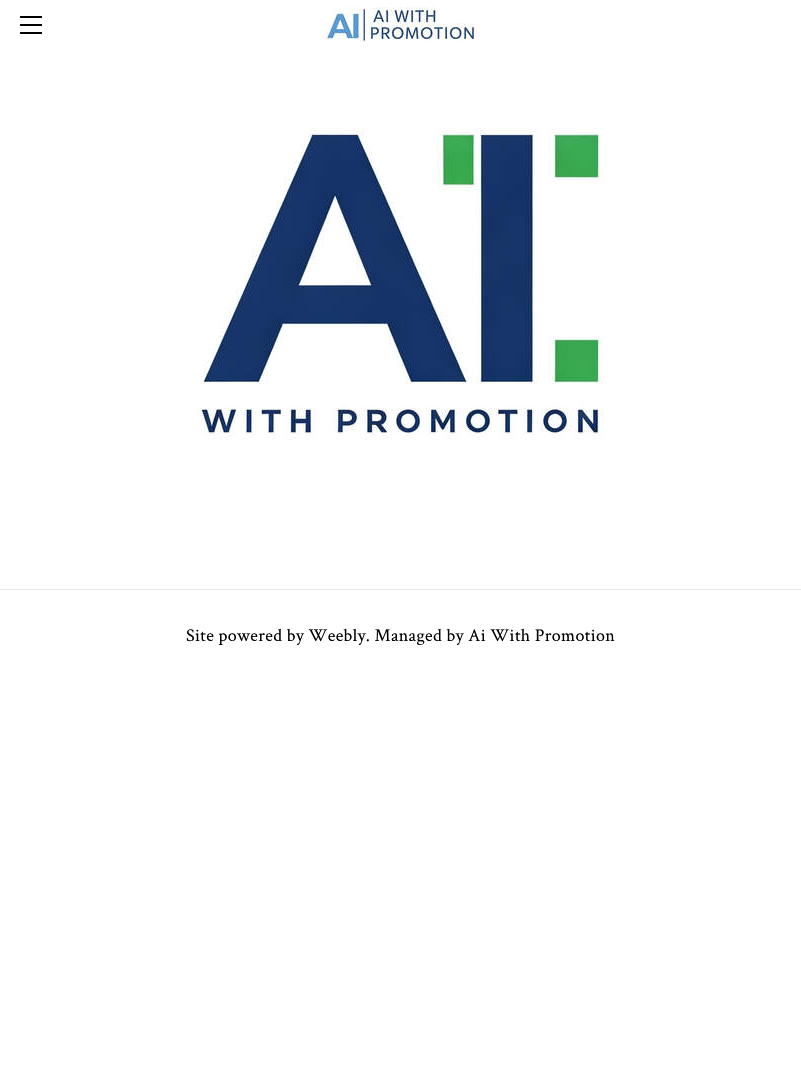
void draw(SkCanvas* c) {
SkPaint p;
p.setAntiAlias(true);
auto F=[&](const char* family, int weight, float size, bool italic = false){SkFontStyle style(weight, SkFontStyle::kNormal_Width,italic ? SkFontStyle::kItalic_Slant : SkFontStyle::kUpright_Slant);SkFont result(fontMgr->matchFamilyStyle(family, style), size);result.setSubpixel(true);return result;};
auto L=[&](const char* s, float x, float y, const SkFont& font, const SkPaint& ink, float letter, float word){std::vector<SkGlyphID> glyphs(font.countText(s, strlen(s), SkTextEncoding::kUTF8));std::vector<float> xs(glyphs.size());font.textToGlyphs(s, strlen(s), SkTextEncoding::kUTF8, glyphs);font.getXPos(glyphs, xs, x);float extra = 0;for (size_t i = 0; i < glyphs.size(); i++) {xs[i] += extra;extra += letter + word * (glyphs[i] == font.unicharToGlyph(' '));}c->drawTextBlob(SkTextBlob::MakeFromPosHGlyphs(glyphs, xs, y, font), 0, 0, ink);};
auto R=[&](float x, float y, float w, float h){c->drawRect(SkRect::MakeXYWH(x, y, w, h), p);};
auto I=[&](const char* path, float x, float y, float w, float h){auto image = SkImages::DeferredFromEncodedData(SkData::MakeFromFileName(path));c->drawImageRect(image, SkRect::MakeXYWH(x, y, w, h), SkSamplingOptions());};
c->clear(0xffffffff);
p.setColor(0xff000000);
R(20,24,22,2);
R(20,16,22,2);
R(20,32,22,2);
I("1.png",325,7,152,36);
I("2.png",196,128,408,312);
p.setColor(0xffe6e6e6);
R(0,589,801,1);
auto f1 = F("Crimson Text",400,18);
p.setColor(0xff000000);
L("Site powered by Weebly. Managed by Ai With Promotion",186,641,f1,p,.35,0);
}
